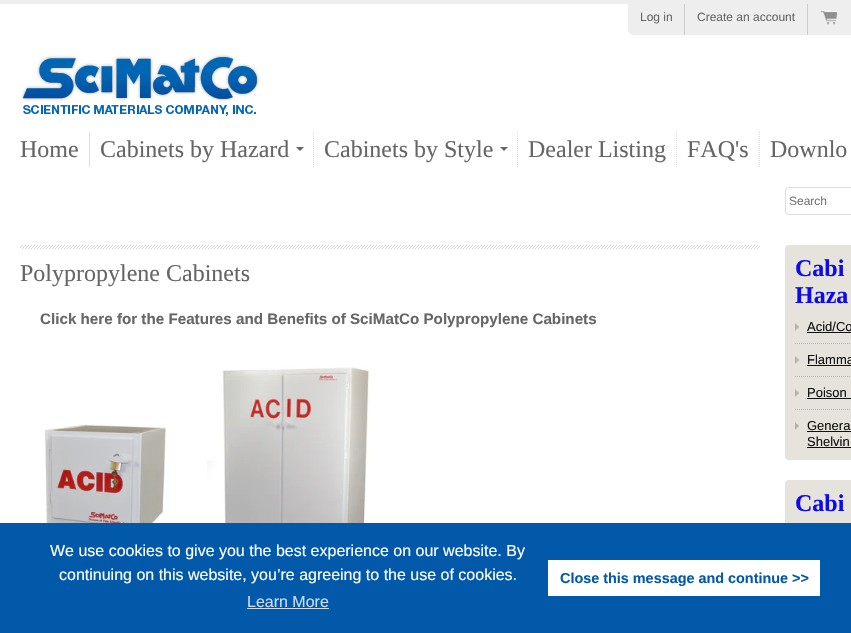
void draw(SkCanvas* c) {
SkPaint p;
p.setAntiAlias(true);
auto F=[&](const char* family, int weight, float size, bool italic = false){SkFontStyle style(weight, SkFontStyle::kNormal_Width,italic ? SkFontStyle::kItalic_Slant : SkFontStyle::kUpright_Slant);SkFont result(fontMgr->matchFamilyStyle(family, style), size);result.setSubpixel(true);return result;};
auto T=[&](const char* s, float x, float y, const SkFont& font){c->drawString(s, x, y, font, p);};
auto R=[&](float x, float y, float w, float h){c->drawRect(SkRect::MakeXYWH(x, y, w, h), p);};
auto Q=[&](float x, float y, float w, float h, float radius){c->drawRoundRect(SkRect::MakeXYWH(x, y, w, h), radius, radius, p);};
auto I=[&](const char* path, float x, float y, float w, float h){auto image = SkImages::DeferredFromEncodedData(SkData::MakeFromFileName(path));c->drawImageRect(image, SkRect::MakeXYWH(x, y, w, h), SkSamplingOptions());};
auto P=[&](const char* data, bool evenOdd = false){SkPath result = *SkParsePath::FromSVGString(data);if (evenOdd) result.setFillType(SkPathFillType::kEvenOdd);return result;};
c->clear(0xffffffff);
p.setColor(0xffeeeeee);
R(0,0,851,4);
c->drawPath(P("M628 4h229v25c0 3.5-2.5 6-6 6h-217c-3.5 0-6-2.5-6-6z"),p);
p.setColor(0xffcccccc);
R(684,4,1,31);
auto f1 = F("Liberation Sans",400,12);
p.setColor(0xff666666);
T("Log in",640,21,f1);
p.setColor(0xffcccccc);
R(807,4,1,31);
p.setColor(0xff666666);
T("Create an account",697,21,f1);
I("1.png",820,10,17,15);
I("2.png",21,54,239,62);
p.setColor(0xffdddddd);
R(89,132,1,35);
auto f2 = F("Liberation Serif",400,24);
p.setColor(0xff666666);
T("Home",20,157,f2);
p.setStroke(true);
p.setStrokeWidth(1);
p.setColor(0xffdddddd);
p.setPathEffect(SkDashPathEffect::Make({{1,1}}, 0));
c->drawPath(P("M313.5 132v35"),p);
p.setPathEffect(nullptr);
p.setStroke(false);
p.setColor(0xff666666);
T("Cabinets by Hazard",100,157,f2);
c->drawPath(P("M296 147h8l-4 4z"),p);
p.setStroke(true);
p.setColor(0xffdddddd);
p.setPathEffect(SkDashPathEffect::Make({{1,1}}, 0));
c->drawPath(P("M517.5 132v35"),p);
p.setPathEffect(nullptr);
p.setStroke(false);
p.setColor(0xff666666);
T("Cabinets by Style",324,157,f2);
c->drawPath(P("M500 147h8l-4 4z"),p);
p.setStroke(true);
p.setColor(0xffdddddd);
p.setPathEffect(SkDashPathEffect::Make({{1,1}}, 0));
c->drawPath(P("M676.5 132v35"),p);
p.setPathEffect(nullptr);
p.setStroke(false);
p.setColor(0xff666666);
T("Dealer Listing",528,157,f2);
p.setStroke(true);
p.setColor(0xffdddddd);
p.setPathEffect(SkDashPathEffect::Make({{1,1}}, 0));
c->drawPath(P("M759.5 132v35"),p);
p.setPathEffect(nullptr);
p.setStroke(false);
p.setColor(0xff666666);
T("FAQ's",687,157,f2);
T("Downlo",770,157,f2);
p.setStroke(true);
p.setColor(0xffdddddd);
c->drawRoundRect(SkRect::MakeXYWH(785.5,187.5,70,27),3.5,3.5,p);
p.setStroke(false);
p.setColor(0xff757575);
T("Search",789,205,f1);
I("3.png",20,245,740,4);
p.setColor(0xff666666);
T("Polypropylene Cabinets",20,281,f2);
auto f3 = F("Liberation Sans",700,15.2);
T("Click here for the Features and Benefits of SciMatCo Polypropylene Cabinets",40,324,f3);
I("4.png",44,424,123,99);
I("5.png",207,367,164,156);
p.setColor(0xffe5e3dc);
Q(785,245,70,215,4);
auto f4 = F("Liberation Serif",700,24);
p.setColor(0xff0d0aeb);
T("Cabi",795,276,f4);
T("Haza",795,303,f4);
p.setStroke(true);
p.setColor(0xffb4b0b0);
p.setPathEffect(SkDashPathEffect::Make({{1,1}}, 0));
c->drawPath(P("M795 343.5h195m-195 33h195"),p);
p.setPathEffect(nullptr);
p.setStroke(false);
c->drawPath(P("M795 331v-8l4 4zm0 33v-8l4 4z"),p);
auto f5 = F("Liberation Sans",400,13);
p.setColor(0xff121111);
T("Acid/Co",807,331,f5);
R(807,332,44,1);
T("Flamma",807,364,f5);
R(807,365,44,1);
p.setStroke(true);
p.setColor(0xffb4b0b0);
p.setPathEffect(SkDashPathEffect::Make({{1,1}}, 0));
c->drawPath(P("M795 409.5h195"),p);
p.setPathEffect(nullptr);
p.setStroke(false);
c->drawPath(P("M795 397v-8l4 4zm0 33v-8l4 4z"),p);
p.setColor(0xff121111);
T("Poison",807,397,f5);
R(807,398,44,1);
T("Genera",807,430,f5);
R(807,431,44,1);
T("Shelvin",807,446,f5);
R(807,447,44,1);
p.setColor(0xffe5e3dc);
Q(785,480,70,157,4);
p.setColor(0xff0d0aeb);
T("Cabi",795,511,f4);
p.setColor(0xff0259a9);
R(0,523,851,110);
auto f6 = F("Liberation Sans",400,16);
p.setColor(0xffffffff);
T("We use cookies to give you the best experience on our website. By",50,556,f6);
T("continuing on this website, you’re agreeing to the use of cookies.",59,580,f6);
p.setColor(0xffccdeee);
T("Learn More",247,607,f6);
R(247,608,82,1);
p.setColor(0xffffffff);
R(548,560,272,36);
auto f7 = F("Liberation Sans",700,14.4);
p.setColor(0xff0259a9);
T("Close this message and continue >>",560,583,f7);
}
